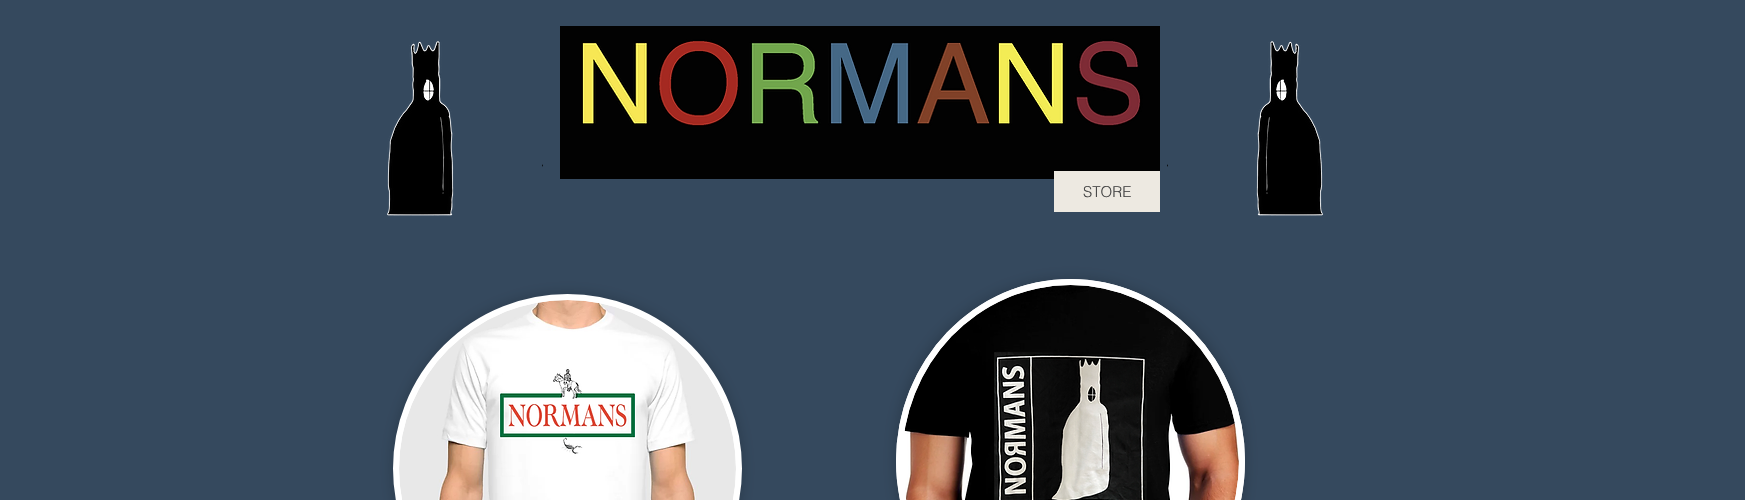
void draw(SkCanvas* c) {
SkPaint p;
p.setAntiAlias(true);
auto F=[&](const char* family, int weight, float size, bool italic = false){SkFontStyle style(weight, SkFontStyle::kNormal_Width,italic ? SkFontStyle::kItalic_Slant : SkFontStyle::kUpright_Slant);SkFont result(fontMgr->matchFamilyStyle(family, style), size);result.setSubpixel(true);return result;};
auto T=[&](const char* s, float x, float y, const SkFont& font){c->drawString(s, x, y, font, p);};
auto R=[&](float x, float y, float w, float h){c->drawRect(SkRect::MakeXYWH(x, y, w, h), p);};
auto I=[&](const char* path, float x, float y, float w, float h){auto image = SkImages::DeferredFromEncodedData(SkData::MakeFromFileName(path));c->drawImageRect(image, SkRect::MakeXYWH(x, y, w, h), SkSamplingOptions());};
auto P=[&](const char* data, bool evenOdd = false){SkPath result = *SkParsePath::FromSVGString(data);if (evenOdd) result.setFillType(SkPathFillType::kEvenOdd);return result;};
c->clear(0xff35495e);
I("1.png",387,41,156,175);
I("2.png",560,26,600,153);
I("3.png",1167,41,156,175);
p.setColor(0xffede9e1);
R(1054,171,106,41);
auto f1 = F("helvetica",300,15);
p.setColor(0xff444444);
T("STORE",1083,197,f1);
p.setColor(0x33000000);
p.setMaskFilter(SkMaskFilter::MakeBlur(kNormal_SkBlurStyle, 7));
c->drawRoundRect(SkRect::MakeXYWH(393,294,349,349),174.5,174.5,p);
p.setMaskFilter(nullptr);
p.setColor(0xffffffff);
c->drawCircle(567.5,468.5,171.5,p);
p.setStroke(true);
p.setStrokeWidth(6);
c->drawCircle(567.5,468.5,171.5,p);
I("4.png",399,300,337,200);
p.setStroke(false);
p.setColor(0x33000000);
p.setMaskFilter(SkMaskFilter::MakeBlur(kNormal_SkBlurStyle, 7));
c->drawRoundRect(SkRect::MakeXYWH(896,279,349,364),174.5,174.5,p);
p.setMaskFilter(nullptr);
p.setColor(0xffffffff);
c->drawOval(SkRect::MakeXYWH(896,279,349,364),p);
p.setStroke(true);
c->drawPath(P("M1070.5 282c94.5 0 171.5 80 171.5 179c0 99-77 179-171.5 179c-94.5 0-171.5-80-171.5-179c0-99 77-179 171.5-179z"),p);
I("5.png",904,285,335,215);
}
